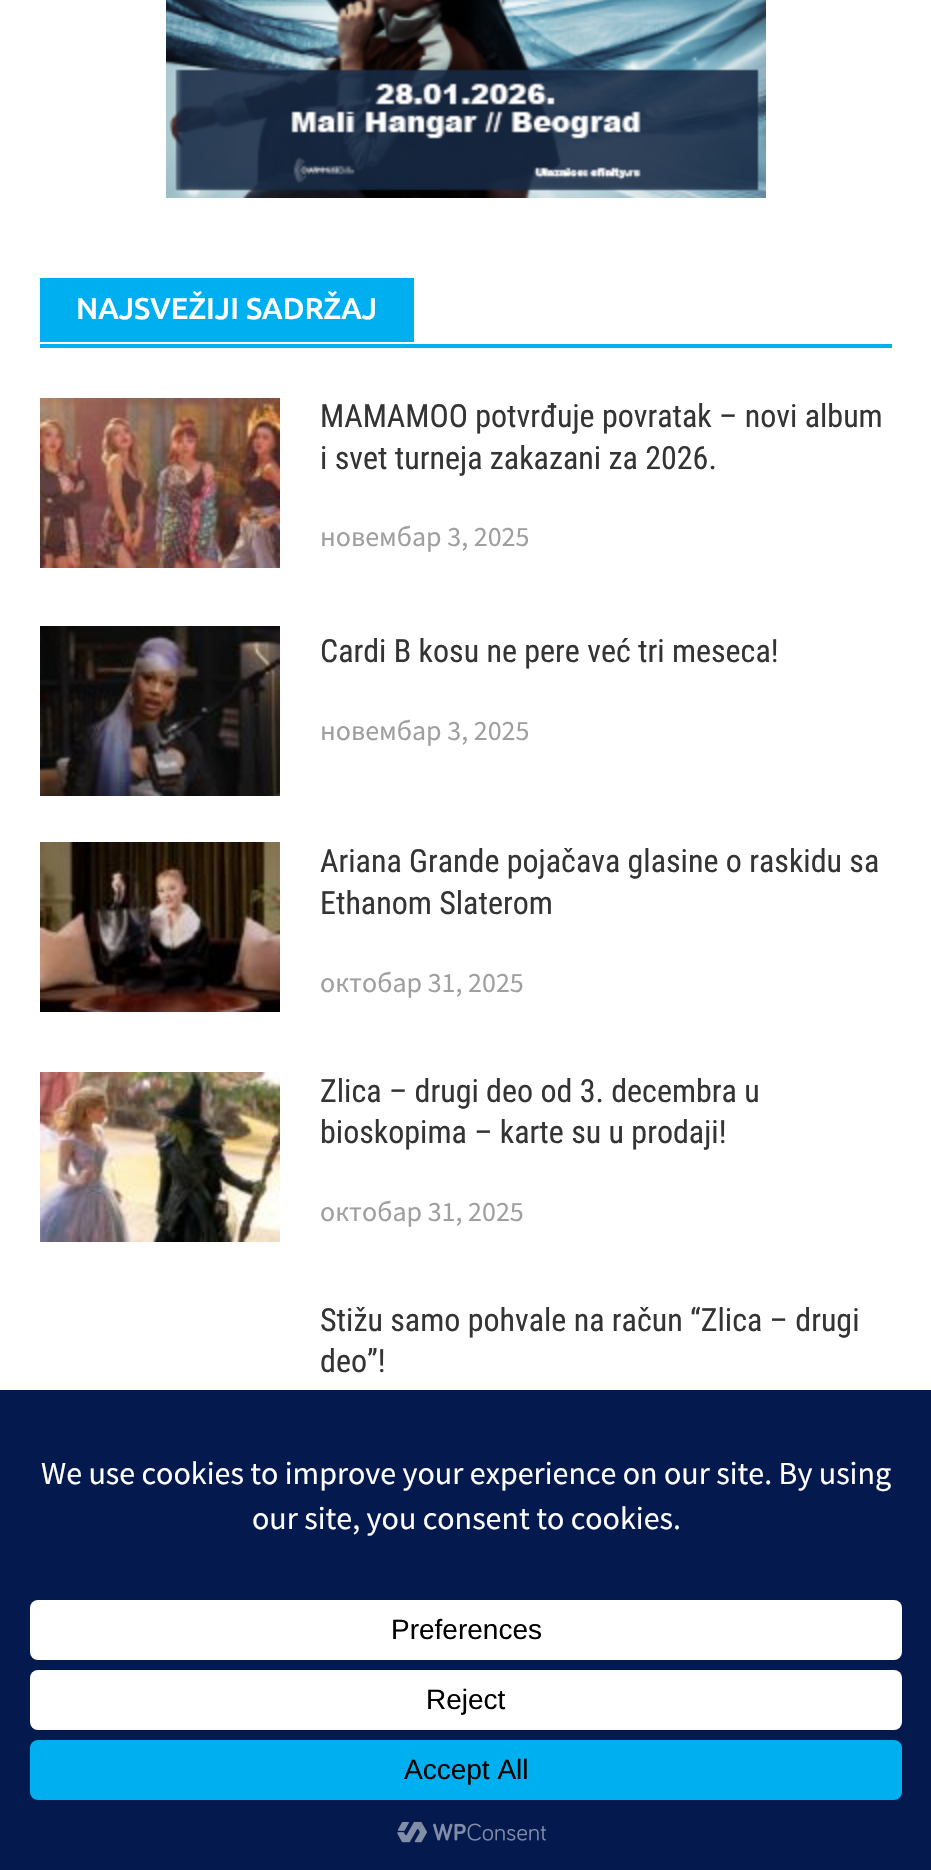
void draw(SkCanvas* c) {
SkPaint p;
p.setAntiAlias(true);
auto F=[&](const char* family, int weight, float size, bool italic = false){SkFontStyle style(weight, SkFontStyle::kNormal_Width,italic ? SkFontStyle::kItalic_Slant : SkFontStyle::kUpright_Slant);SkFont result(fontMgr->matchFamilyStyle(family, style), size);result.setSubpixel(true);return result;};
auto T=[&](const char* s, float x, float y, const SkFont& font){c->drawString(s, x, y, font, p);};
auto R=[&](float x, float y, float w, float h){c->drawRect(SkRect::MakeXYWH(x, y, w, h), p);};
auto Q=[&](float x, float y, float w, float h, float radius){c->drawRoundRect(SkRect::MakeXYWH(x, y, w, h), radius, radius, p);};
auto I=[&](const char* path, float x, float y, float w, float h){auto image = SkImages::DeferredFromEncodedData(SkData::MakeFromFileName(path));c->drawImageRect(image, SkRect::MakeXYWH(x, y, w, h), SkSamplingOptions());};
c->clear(0xffffffff);
I("1.png",166,0,600,198);
p.setColor(0xff00afef);
R(40,344,852,4);
R(40,278,374,64);
auto f1 = F("Ubuntu",500,30);
p.setColor(0xffffffff);
T("NAJSVEŽIJI SADRŽAJ",76,319,f1);
I("2.png",40,398,240,170);
auto f2 = F("Roboto Condensed",400,32);
p.setColor(0xff353434);
T("MAMAMOO potvrđuje povratak – novi album",320,427,f2);
T("i svet turneja zakazani za 2026.",320,469,f2);
auto f3 = F("Source Sans Pro",400,28);
p.setColor(0xff9f9f9f);
T("новембар 3, 2025",320,546,f3);
I("3.png",40,626,240,170);
p.setColor(0xff353434);
T("Cardi B kosu ne pere već tri meseca!",320,662,f2);
p.setColor(0xff9f9f9f);
T("новембар 3, 2025",320,740,f3);
I("4.png",40,842,240,170);
p.setColor(0xff353434);
T("Ariana Grande pojačava glasine o raskidu sa",320,872,f2);
T("Ethanom Slaterom",320,914,f2);
p.setColor(0xff9f9f9f);
T("октобар 31, 2025",320,992,f3);
I("5.png",40,1072,240,170);
p.setColor(0xff353434);
T("Zlica – drugi deo od 3. decembra u",320,1102,f2);
T("bioskopima – karte su u prodaji!",320,1143,f2);
p.setColor(0xff9f9f9f);
T("октобар 31, 2025",320,1221,f3);
p.setColor(0xff353434);
T("Stižu samo pohvale na račun “Zlica – drugi",320,1331,f2);
T("deo”!",320,1372,f2);
p.setColor(0xff04194e);
R(0,1390,931,480);
auto f4 = F("Source Sans Pro",400,32);
p.setColor(0xffffffff);
T("We use cookies to improve your experience on our site. By using",41,1484,f4);
T("our site, you consent to cookies.",252,1529,f4);
Q(30,1600,872,60,8);
auto f5 = F("Liberation Sans",400,28);
p.setColor(0xff000000);
T("Preferences",391,1639,f5);
p.setColor(0xffffffff);
Q(30,1670,872,60,8);
p.setColor(0xff000000);
T("Reject",426,1709,f5);
p.setColor(0xff00afef);
Q(30,1740,872,60,8);
p.setColor(0xff000000);
T("Accept All",404,1779,f5);
I("6.png",397,1821,149,22);
}
